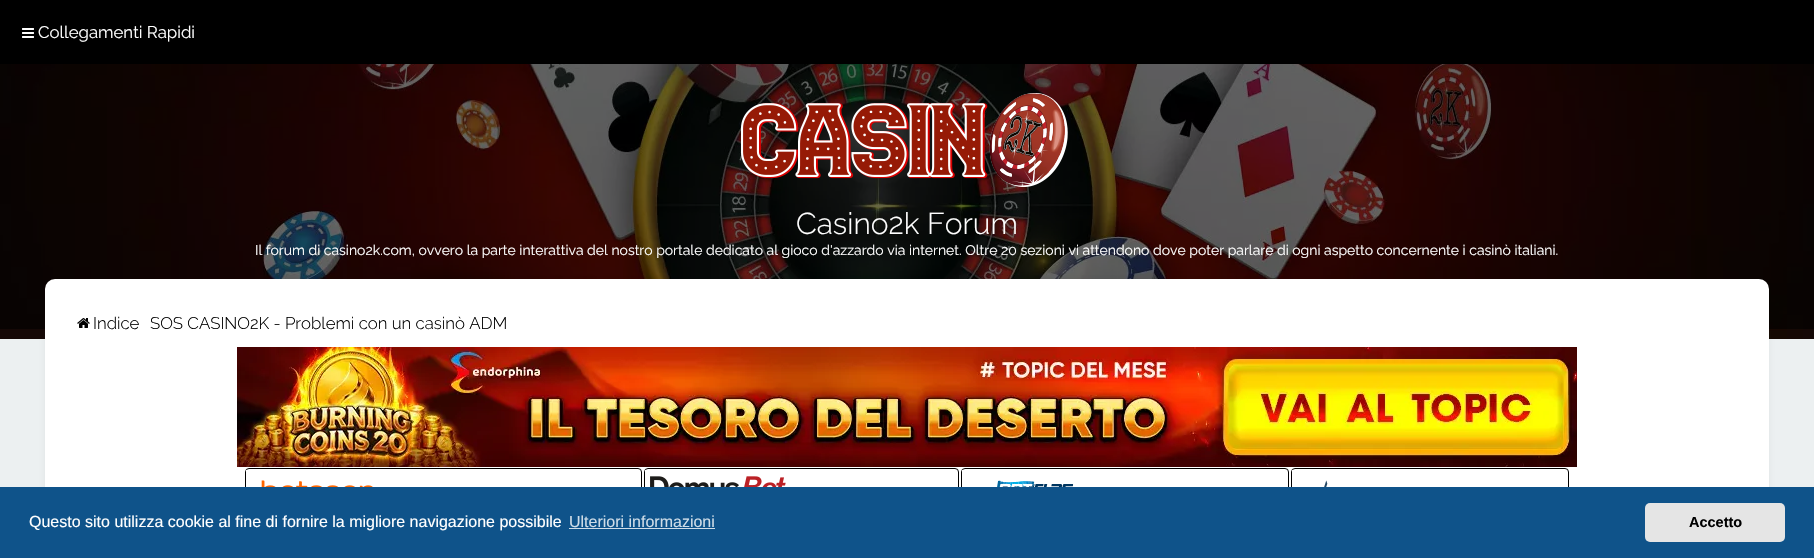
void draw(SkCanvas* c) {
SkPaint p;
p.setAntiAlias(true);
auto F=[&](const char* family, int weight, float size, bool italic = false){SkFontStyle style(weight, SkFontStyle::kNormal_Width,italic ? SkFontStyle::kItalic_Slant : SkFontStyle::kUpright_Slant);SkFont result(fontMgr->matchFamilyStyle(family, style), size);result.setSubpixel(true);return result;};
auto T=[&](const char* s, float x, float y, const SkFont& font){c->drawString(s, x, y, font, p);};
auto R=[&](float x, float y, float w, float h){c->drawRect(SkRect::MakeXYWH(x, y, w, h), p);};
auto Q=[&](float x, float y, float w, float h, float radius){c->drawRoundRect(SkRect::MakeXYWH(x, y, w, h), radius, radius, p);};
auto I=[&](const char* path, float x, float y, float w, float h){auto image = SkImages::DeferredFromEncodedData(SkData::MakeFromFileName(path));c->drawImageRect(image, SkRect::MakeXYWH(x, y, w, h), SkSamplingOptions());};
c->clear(0xffecf0f1);
p.setColor(0xff000000);
R(0,0,1814,64);
I("1.png",22,28,12,10);
auto f1 = F("Raleway",400,16.8);
p.setColor(0xffffffff);
T("Collegamenti Rapidi",38,38,f1);
I("2.png",0,64,1814,275);
I("3.png",741,93,327,94);
auto f2 = F("Raleway",300,30);
T("Casino2k Forum",796,234,f2);
auto f3 = F("Raleway",400,14);
T("Il forum di casino2k.com, ovvero la parte interattiva del nostro portale dedicato al gioco d'azzardo via internet. Oltre 20 sezioni vi attendono dove poter parlare di ogni aspetto concernente i casinò italiani.",255,255,f3);
p.setColor(0x0d000000);
p.setMaskFilter(SkMaskFilter::MakeBlur(kNormal_SkBlurStyle, 2.5));
c->drawRoundRect(SkRect::MakeXYWH(45,279,1724,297),10,10,p);
p.setMaskFilter(nullptr);
p.setColor(0xffffffff);
Q(45,279,1724,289,10);
I("4.png",77,318,13,10);
auto f4 = F("Raleway",300,16.8);
p.setColor(0xff000000);
T("Indice",93,329,f4);
T("SOS CASINO2K - Problemi con un casinò ADM",150,329,f4);
I("5.png",237,347,1340,120);
p.setStroke(true);
p.setStrokeWidth(1);
c->drawRoundRect(SkRect::MakeXYWH(245.5,468.5,396,43),3.5,3.5,p);
I("6.png",246,470,129,17);
c->drawRoundRect(SkRect::MakeXYWH(644.5,468.5,314,43),3.5,3.5,p);
I("7.png",645,470,141,17);
c->drawRoundRect(SkRect::MakeXYWH(961.5,468.5,327,43),3.5,3.5,p);
I("8.png",962,470,112,17);
c->drawRoundRect(SkRect::MakeXYWH(1291.5,468.5,277,43),3.5,3.5,p);
I("9.png",1292,470,121,17);
p.setStroke(false);
p.setColor(0xff0f538a);
R(0,487,1814,71);
auto f5 = F("Liberation Sans",400,16);
p.setColor(0xffffffff);
T("Questo sito utilizza cookie al fine di fornire la migliore navigazione possibile",29,527,f5);
p.setColor(0xffcfdde8);
T("Ulteriori informazioni",569,527,f5);
R(569,528,146,1);
p.setColor(0xffe5e5e5);
Q(1645,503,140,39,5);
auto f6 = F("Liberation Sans",700,14.5);
p.setColor(0xff000000);
T("Accetto",1689,527,f6);
}
